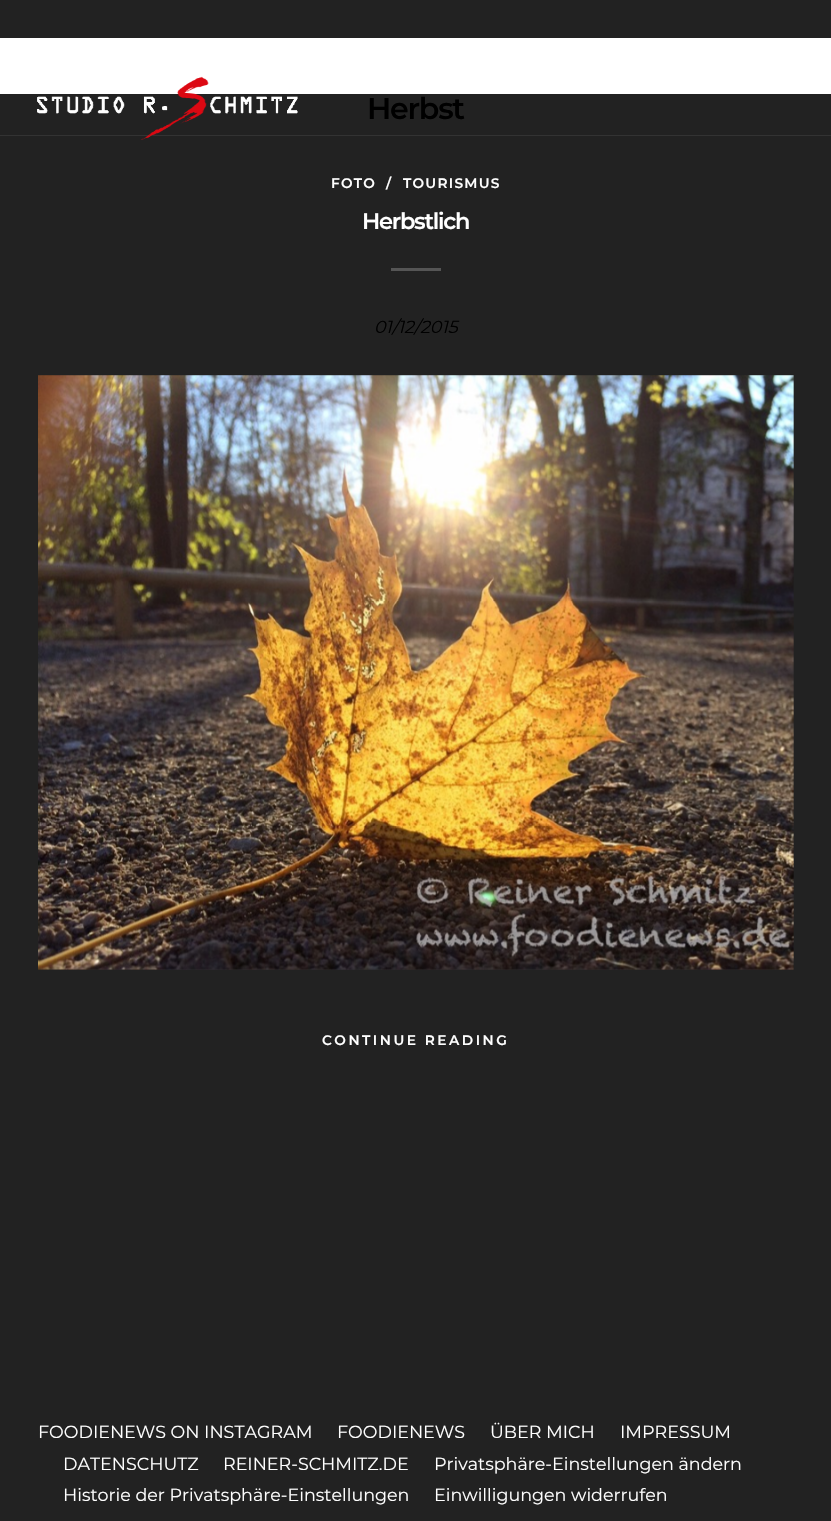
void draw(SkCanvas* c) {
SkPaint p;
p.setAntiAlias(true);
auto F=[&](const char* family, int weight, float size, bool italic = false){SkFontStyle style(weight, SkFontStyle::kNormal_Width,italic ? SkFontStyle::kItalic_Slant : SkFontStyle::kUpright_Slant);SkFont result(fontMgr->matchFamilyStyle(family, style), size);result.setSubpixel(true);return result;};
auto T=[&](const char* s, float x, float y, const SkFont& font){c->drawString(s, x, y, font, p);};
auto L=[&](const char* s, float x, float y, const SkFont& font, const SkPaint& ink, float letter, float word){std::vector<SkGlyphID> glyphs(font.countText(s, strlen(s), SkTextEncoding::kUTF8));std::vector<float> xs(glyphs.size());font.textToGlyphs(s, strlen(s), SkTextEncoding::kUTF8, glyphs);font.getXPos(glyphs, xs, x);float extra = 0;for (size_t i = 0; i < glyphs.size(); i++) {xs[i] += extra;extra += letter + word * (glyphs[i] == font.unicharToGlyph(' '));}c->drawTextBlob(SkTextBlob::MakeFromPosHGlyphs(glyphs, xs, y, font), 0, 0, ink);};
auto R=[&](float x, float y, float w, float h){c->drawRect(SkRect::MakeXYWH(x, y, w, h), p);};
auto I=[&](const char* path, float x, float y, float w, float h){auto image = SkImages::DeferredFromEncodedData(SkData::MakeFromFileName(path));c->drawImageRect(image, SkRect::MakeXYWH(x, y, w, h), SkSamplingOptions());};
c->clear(0xff222222);
p.setColor(0xffffffff);
R(0,38,831,56);
p.setColor(0xff333333);
R(0,135,831,1);
I("1.png",37,76,261,64);
auto f1 = F("Montserrat",600,30);
p.setColor(0xff000000);
L("Herbst",367,119,f1,p,-1.25,0);
auto f2 = F("Montserrat",600,13.75);
p.setColor(0xffffffff);
L("FOTO",331,188,f2,p,1.25,0);
L("/",386,188,f2,p,1.25,0);
L("TOURISMUS",403,188,f2,p,1.25,0);
auto f3 = F("Montserrat",600,22.5);
L("Herbstlich",362,229,f3,p,-1.25,0);
p.setColor(0xff555555);
R(391,268,50,3);
auto f4 = F("Montserrat",400,17.5,true);
p.setColor(0xff000000);
T("01/12/2015",374,333,f4);
I("2.png",38,375,756,595);
p.setColor(0xffffffff);
L("CONTINUE READING",322,1045,f2,p,2.5,0);
auto f5 = F("Montserrat",400,17.5);
T("FOODIENEWS ON INSTAGRAM",38,1438,f5);
T("FOODIENEWS",337,1438,f5);
T("ÜBER MICH",490,1438,f5);
T("IMPRESSUM",620,1438,f5);
T("DATENSCHUTZ",63,1470,f5);
T("REINER-SCHMITZ.DE",223,1470,f5);
T("Privatsphäre-Einstellungen ändern",434,1470,f5);
T("Historie der Privatsphäre-Einstellungen",63,1501,f5);
T("Einwilligungen widerrufen",434,1501,f5);
}
